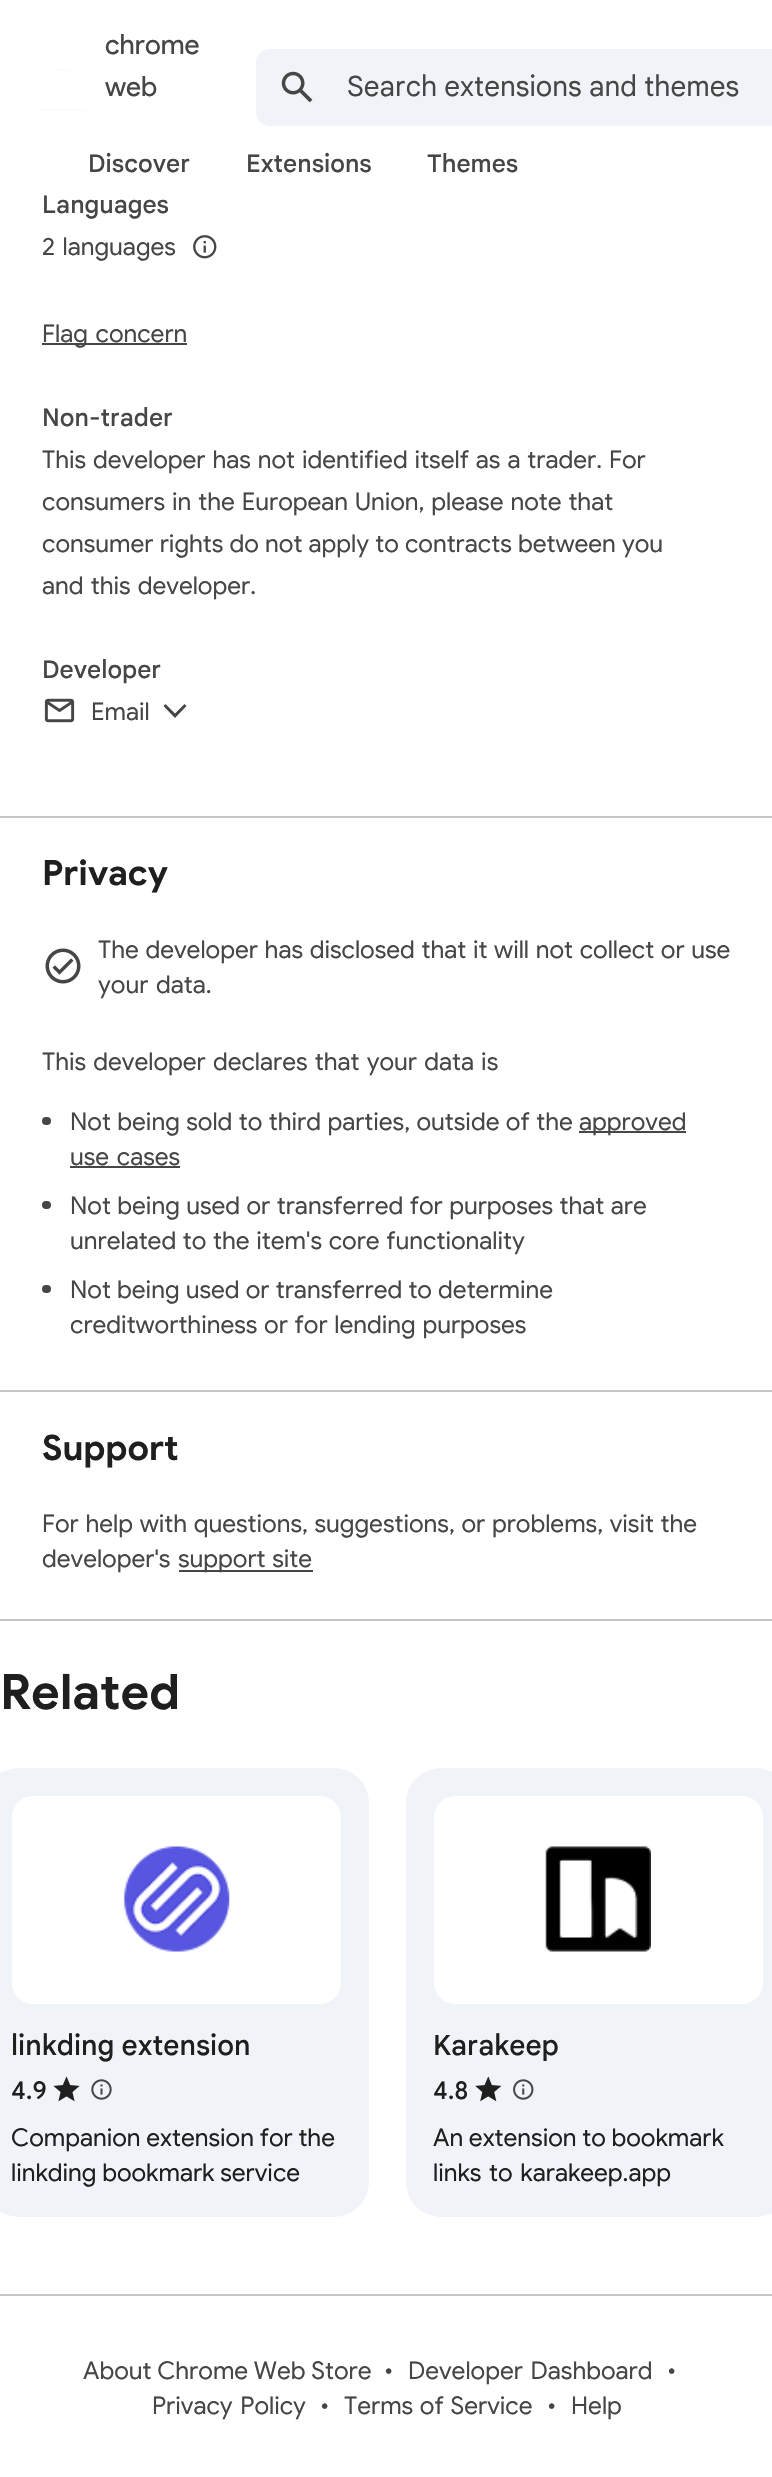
void draw(SkCanvas* c) {
SkPaint p;
p.setAntiAlias(true);
auto F=[&](const char* family, int weight, float size, bool italic = false){SkFontStyle style(weight, SkFontStyle::kNormal_Width,italic ? SkFontStyle::kItalic_Slant : SkFontStyle::kUpright_Slant);SkFont result(fontMgr->matchFamilyStyle(family, style), size);result.setSubpixel(true);return result;};
auto T=[&](const char* s, float x, float y, const SkFont& font){c->drawString(s, x, y, font, p);};
auto L=[&](const char* s, float x, float y, const SkFont& font, const SkPaint& ink, float letter, float word){std::vector<SkGlyphID> glyphs(font.countText(s, strlen(s), SkTextEncoding::kUTF8));std::vector<float> xs(glyphs.size());font.textToGlyphs(s, strlen(s), SkTextEncoding::kUTF8, glyphs);font.getXPos(glyphs, xs, x);float extra = 0;for (size_t i = 0; i < glyphs.size(); i++) {xs[i] += extra;extra += letter + word * (glyphs[i] == font.unicharToGlyph(' '));}c->drawTextBlob(SkTextBlob::MakeFromPosHGlyphs(glyphs, xs, y, font), 0, 0, ink);};
auto R=[&](float x, float y, float w, float h){c->drawRect(SkRect::MakeXYWH(x, y, w, h), p);};
auto Q=[&](float x, float y, float w, float h, float radius){c->drawRoundRect(SkRect::MakeXYWH(x, y, w, h), radius, radius, p);};
auto I=[&](const char* path, float x, float y, float w, float h){auto image = SkImages::DeferredFromEncodedData(SkData::MakeFromFileName(path));c->drawImageRect(image, SkRect::MakeXYWH(x, y, w, h), SkSamplingOptions());};
auto P=[&](const char* data, bool evenOdd = false){SkPath result = *SkParsePath::FromSVGString(data);if (evenOdd) result.setFillType(SkPathFillType::kEvenOdd);return result;};
c->clear(0xffffffff);
I("1.png",38,69,50,41);
auto f1 = F("Product Sans",400,28);
p.setColor(0xff444746);
T("chrome",105,54,f1);
T("web",105,96,f1);
p.setColor(0xfff0f4f9);
Q(256,49,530,77,14);
I("2.png",281,71,32,32);
auto f2 = F("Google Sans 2",400,28);
p.setColor(0xff444746);
T("Search extensions and themes",347,96,f2);
auto f3 = F("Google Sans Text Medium",500,24.5);
T("Discover",88,172,f3);
T("Extensions",246,172,f3);
T("Themes",427,172,f3);
p.setColor(0xffc4c7c5);
R(0,816,772,2);
auto f4 = F("Google Sans",500,24.5);
p.setColor(0xff444746);
T("Languages",42,213,f4);
auto f5 = F("Google Sans",400,24.5);
L("2 languages",42,255,f5,p,0,2);
I("3.png",193,235,24,24);
R(42,343,145,2);
L("Flag concern",42,342,f5,p,0,2);
T("Non-trader",42,426,f4);
L("This developer has not identified itself as a trader. For",42,468,f5,p,0,1.25);
L("consumers in the European Union, please note that",42,510,f5,p,0,1.25);
L("consumer rights do not apply to contracts between you",42,552,f5,p,0,.5);
L("and this developer.",42,594,f5,p,0,1.5);
T("Developer",42,678,f4);
I("4.png",44,698,31,25);
T("Email",91,720,f5);
c->drawPath(P("M165.5 704l-2 2l11.5 12l11.5-12l-2-2l-9.5 9.5"),p);
p.setColor(0xffc4c7c5);
R(0,1390,772,2);
auto f6 = F("Google Sans",700,35);
p.setColor(0xff1f1f1f);
T("Privacy",42,885,f6);
I("5.png",45,948,36,36);
p.setColor(0xff444746);
L("The developer has disclosed that it will not collect or use",98,958,f5,p,0,1);
L("your data.",98,993,f5,p,0,2);
L("This developer declares that your data is",42,1070,f5,p,0,1.5);
Q(42,1117,9,8,4);
L("Not being sold to third parties, outside of the",70,1130,f5,p,0,.75);
R(579,1131,107,2);
T("approved",579,1130,f5);
L("use cases",70,1165,f5,p,0,2);
R(70,1166,110,2);
Q(42,1201,9,8,4);
L("Not being used or transferred for purposes that are",70,1214,f5,p,0,.75);
L("unrelated to the item's core functionality",70,1249,f5,p,0,1);
Q(42,1285,9,8,4);
L("Not being used or transferred to determine",70,1298,f5,p,0,.5);
L("creditworthiness or for lending purposes",70,1333,f5,p,0,1);
p.setColor(0xffc4c7c5);
R(0,1619,772,2);
p.setColor(0xff1f1f1f);
T("Support",42,1460,f6);
p.setColor(0xff444746);
L("For help with questions, suggestions, or problems, visit the",42,1532,f5,p,0,1);
T("developer's",42,1567,f5);
R(179,1570,134,2);
L("support site",178,1567,f5,p,0,1);
auto f7 = F("Google Sans",700,49);
p.setColor(0xff1f1f1f);
T("Related",0,1709,f7);
p.setColor(0xfff0f4f9);
Q(-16,1768,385,449,35);
p.setColor(0xffffffff);
Q(12,1796,329,208,21);
I("6.png",123,1846,107,106);
auto f8 = F("Google Sans",500,28);
p.setColor(0xff1f1f1f);
T("linkding extension",11,2055,f8);
T("4.9",11,2099,f4);
I("7.png",53,2076,27,26);
I("8.png",91,2079,21,21);
T("Companion extension for the",11,2146,f5);
T("linkding bookmark service",11,2181,f5);
p.setColor(0xfff0f4f9);
Q(406,1768,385,449,35);
p.setColor(0xffffffff);
Q(434,1796,329,208,21);
I("9.png",545,1846,106,106);
p.setColor(0xff1f1f1f);
T("Karakeep",433,2055,f8);
T("4.8",433,2099,f4);
I("10.png",475,2076,27,26);
I("11.png",513,2079,21,21);
T("An extension to bookmark",433,2146,f5);
L("links to karakeep.app",433,2181,f5,p,0,2);
p.setColor(0xffc4c7c5);
R(0,2294,772,2);
p.setColor(0xff444746);
T("About Chrome Web Store",83,2379,f5);
T("•",384,2379,f5);
L("Developer Dashboard",408,2379,f5,p,0,2);
T("•",667,2379,f5);
L("Privacy Policy",152,2414,f5,p,0,2);
T("•",320,2414,f5);
L("Terms of Service",344,2414,f5,p,0,1);
T("•",547,2414,f5);
T("Help",571,2414,f5);
}
